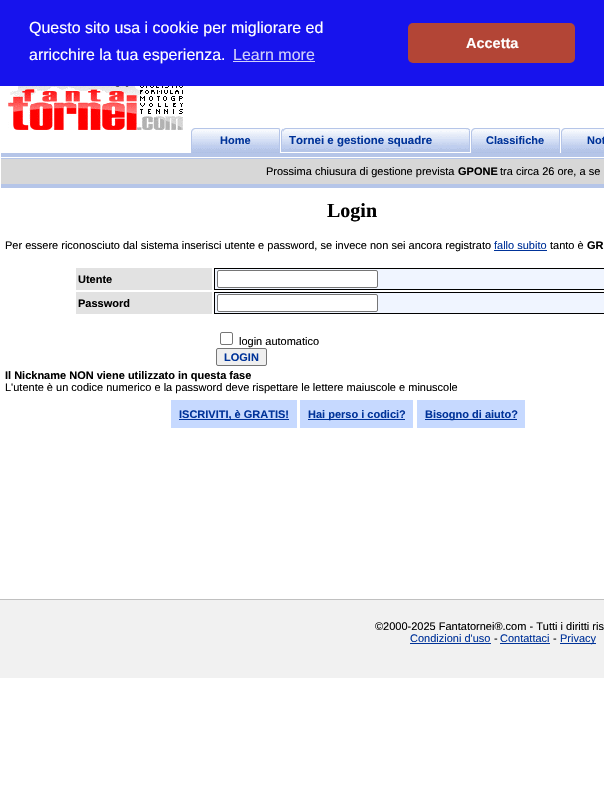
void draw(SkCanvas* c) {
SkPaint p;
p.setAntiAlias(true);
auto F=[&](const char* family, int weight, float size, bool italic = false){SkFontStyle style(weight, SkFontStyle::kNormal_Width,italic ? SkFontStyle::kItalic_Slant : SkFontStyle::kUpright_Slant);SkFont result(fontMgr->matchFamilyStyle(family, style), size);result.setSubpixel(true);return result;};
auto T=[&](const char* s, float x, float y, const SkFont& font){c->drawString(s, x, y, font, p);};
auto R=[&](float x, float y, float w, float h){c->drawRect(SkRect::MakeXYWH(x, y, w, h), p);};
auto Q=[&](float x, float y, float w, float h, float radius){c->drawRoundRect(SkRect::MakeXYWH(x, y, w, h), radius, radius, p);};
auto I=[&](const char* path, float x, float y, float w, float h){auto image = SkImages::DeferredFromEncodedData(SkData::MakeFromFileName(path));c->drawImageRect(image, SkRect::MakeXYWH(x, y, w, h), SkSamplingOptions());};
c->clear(0xffffffff);
p.setColor(0xff1713ed);
R(0,0,604,86);
auto f1 = F("Liberation Sans",400,16);
p.setColor(0xffffffff);
T("Questo sito usa i cookie per migliorare ed",29,33,f1);
T("arricchire la tua esperienza.",29,60,f1);
p.setColor(0xffd1d0fb);
T("Learn more",233,60,f1);
R(233,61,82,1);
p.setColor(0xffb34536);
Q(408,23,167,40,5);
auto f2 = F("Liberation Sans",700,14.5);
p.setColor(0xffffffff);
T("Accetta",466,48,f2);
I("1.png",8,86,175,44);
I("2.png",190,128,90,25);
auto f3 = F("Liberation Sans",700,11);
p.setColor(0xff003399);
T("Home",220,144,f3);
I("3.png",280,128,190,24);
auto f4 = F("Liberation Sans",700,11.5);
T("Tornei e gestione squadre",289,144,f4);
I("2.png",470,128,90,25);
T("Classifiche",486,144,f3);
I("4.png",560,128,44,25);
T("Not",587,144,f3);
p.setColor(0xffb5c5e8);
R(1,153,603,4);
p.setColor(0xffd7d7d7);
R(1,159,603,25);
p.setColor(0xffb5c5e8);
R(1,158,603,1);
R(1,184,603,4);
auto f5 = F("Liberation Sans",400,11);
p.setColor(0xff000000);
T("Prossima chiusura di gestione prevista",266,175,f5);
T("GPONE",458,175,f3);
T("tra circa 26 ore, a se",500,175,f5);
auto f6 = F("Liberation Serif",700,20);
T("Login",327,217,f6);
T("Per essere riconosciuto dal sistema inserisci utente e password, se invece non sei ancora registrato",5,249,f5);
p.setColor(0xff003399);
T("fallo subito",494,249,f5);
R(494,250,53,1);
p.setColor(0xff000000);
T("tanto è",550,249,f5);
T("GR",587,249,f3);
p.setColor(0xffe2e2e2);
R(76,268,136,22);
p.setColor(0xff000000);
T("Utente",78,283,f3);
p.setColor(0xfff0f5ff);
c->drawRect(SkRect::MakeXYWH(214.5,268.5,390,21),p);
p.setStroke(true);
p.setStrokeWidth(1);
p.setColor(0xff000000);
c->drawRect(SkRect::MakeXYWH(214.5,268.5,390,21),p);
p.setStroke(false);
p.setColor(0xffffffff);
c->drawRoundRect(SkRect::MakeXYWH(217.5,270.5,160,17),1.5,1.5,p);
p.setStroke(true);
p.setColor(0xff767676);
c->drawRoundRect(SkRect::MakeXYWH(217.5,270.5,160,17),1.5,1.5,p);
p.setStroke(false);
p.setColor(0xffe2e2e2);
R(76,292,136,22);
p.setColor(0xff000000);
T("Password",78,307,f3);
p.setColor(0xfff0f5ff);
c->drawRect(SkRect::MakeXYWH(214.5,292.5,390,21),p);
p.setStroke(true);
p.setColor(0xff000000);
c->drawRect(SkRect::MakeXYWH(214.5,292.5,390,21),p);
p.setStroke(false);
p.setColor(0xffffffff);
c->drawRoundRect(SkRect::MakeXYWH(217.5,294.5,160,17),1.5,1.5,p);
p.setStroke(true);
p.setColor(0xff767676);
c->drawRoundRect(SkRect::MakeXYWH(217.5,294.5,160,17),1.5,1.5,p);
c->drawRoundRect(SkRect::MakeXYWH(220.5,332.5,12,12),1.5,1.5,p);
p.setStroke(false);
p.setColor(0xff000000);
T("login automatico",239,345,f5);
p.setColor(0xffefefef);
c->drawRoundRect(SkRect::MakeXYWH(216.5,348.5,50,17),1.5,1.5,p);
p.setStroke(true);
p.setColor(0xff767676);
c->drawRoundRect(SkRect::MakeXYWH(216.5,348.5,50,17),1.5,1.5,p);
p.setStroke(false);
p.setColor(0xff003399);
T("LOGIN",224,361,f3);
p.setColor(0xff000000);
T("Il Nickname NON viene utilizzato in questa fase",5,379,f3);
T("L'utente è un codice numerico e la password deve rispettare le lettere maiuscole e minuscole",5,391,f5);
p.setColor(0xffc6d9ff);
R(171,400,126,28);
p.setColor(0xff003399);
R(179,419,110,1);
T("ISCRIVITI, è GRATIS!",179,418,f3);
p.setColor(0xffc6d9ff);
R(300,400,113,28);
p.setColor(0xff003399);
R(308,419,97,1);
T("Hai perso i codici?",308,418,f3);
p.setColor(0xffc6d9ff);
R(417,400,108,28);
p.setColor(0xff003399);
R(425,419,92,1);
T("Bisogno di aiuto?",425,418,f3);
p.setColor(0xfff1f1f1);
R(0,600,604,78);
p.setColor(0xffc0c0c0);
R(0,599,604,1);
p.setColor(0xff000000);
T("©2000-2025 Fantatornei®.com - Tutti i diritti ris",375,630,f5);
p.setColor(0xff003399);
T("Condizioni d'uso",410,642,f5);
R(410,643,81,1);
p.setColor(0xff000000);
T("-",494,642,f5);
p.setColor(0xff003399);
T("Contattaci",500,642,f5);
R(500,643,50,1);
p.setColor(0xff000000);
T("-",553,642,f5);
p.setColor(0xff003399);
R(560,643,36,1);
T("Privacy",560,642,f5);
}
